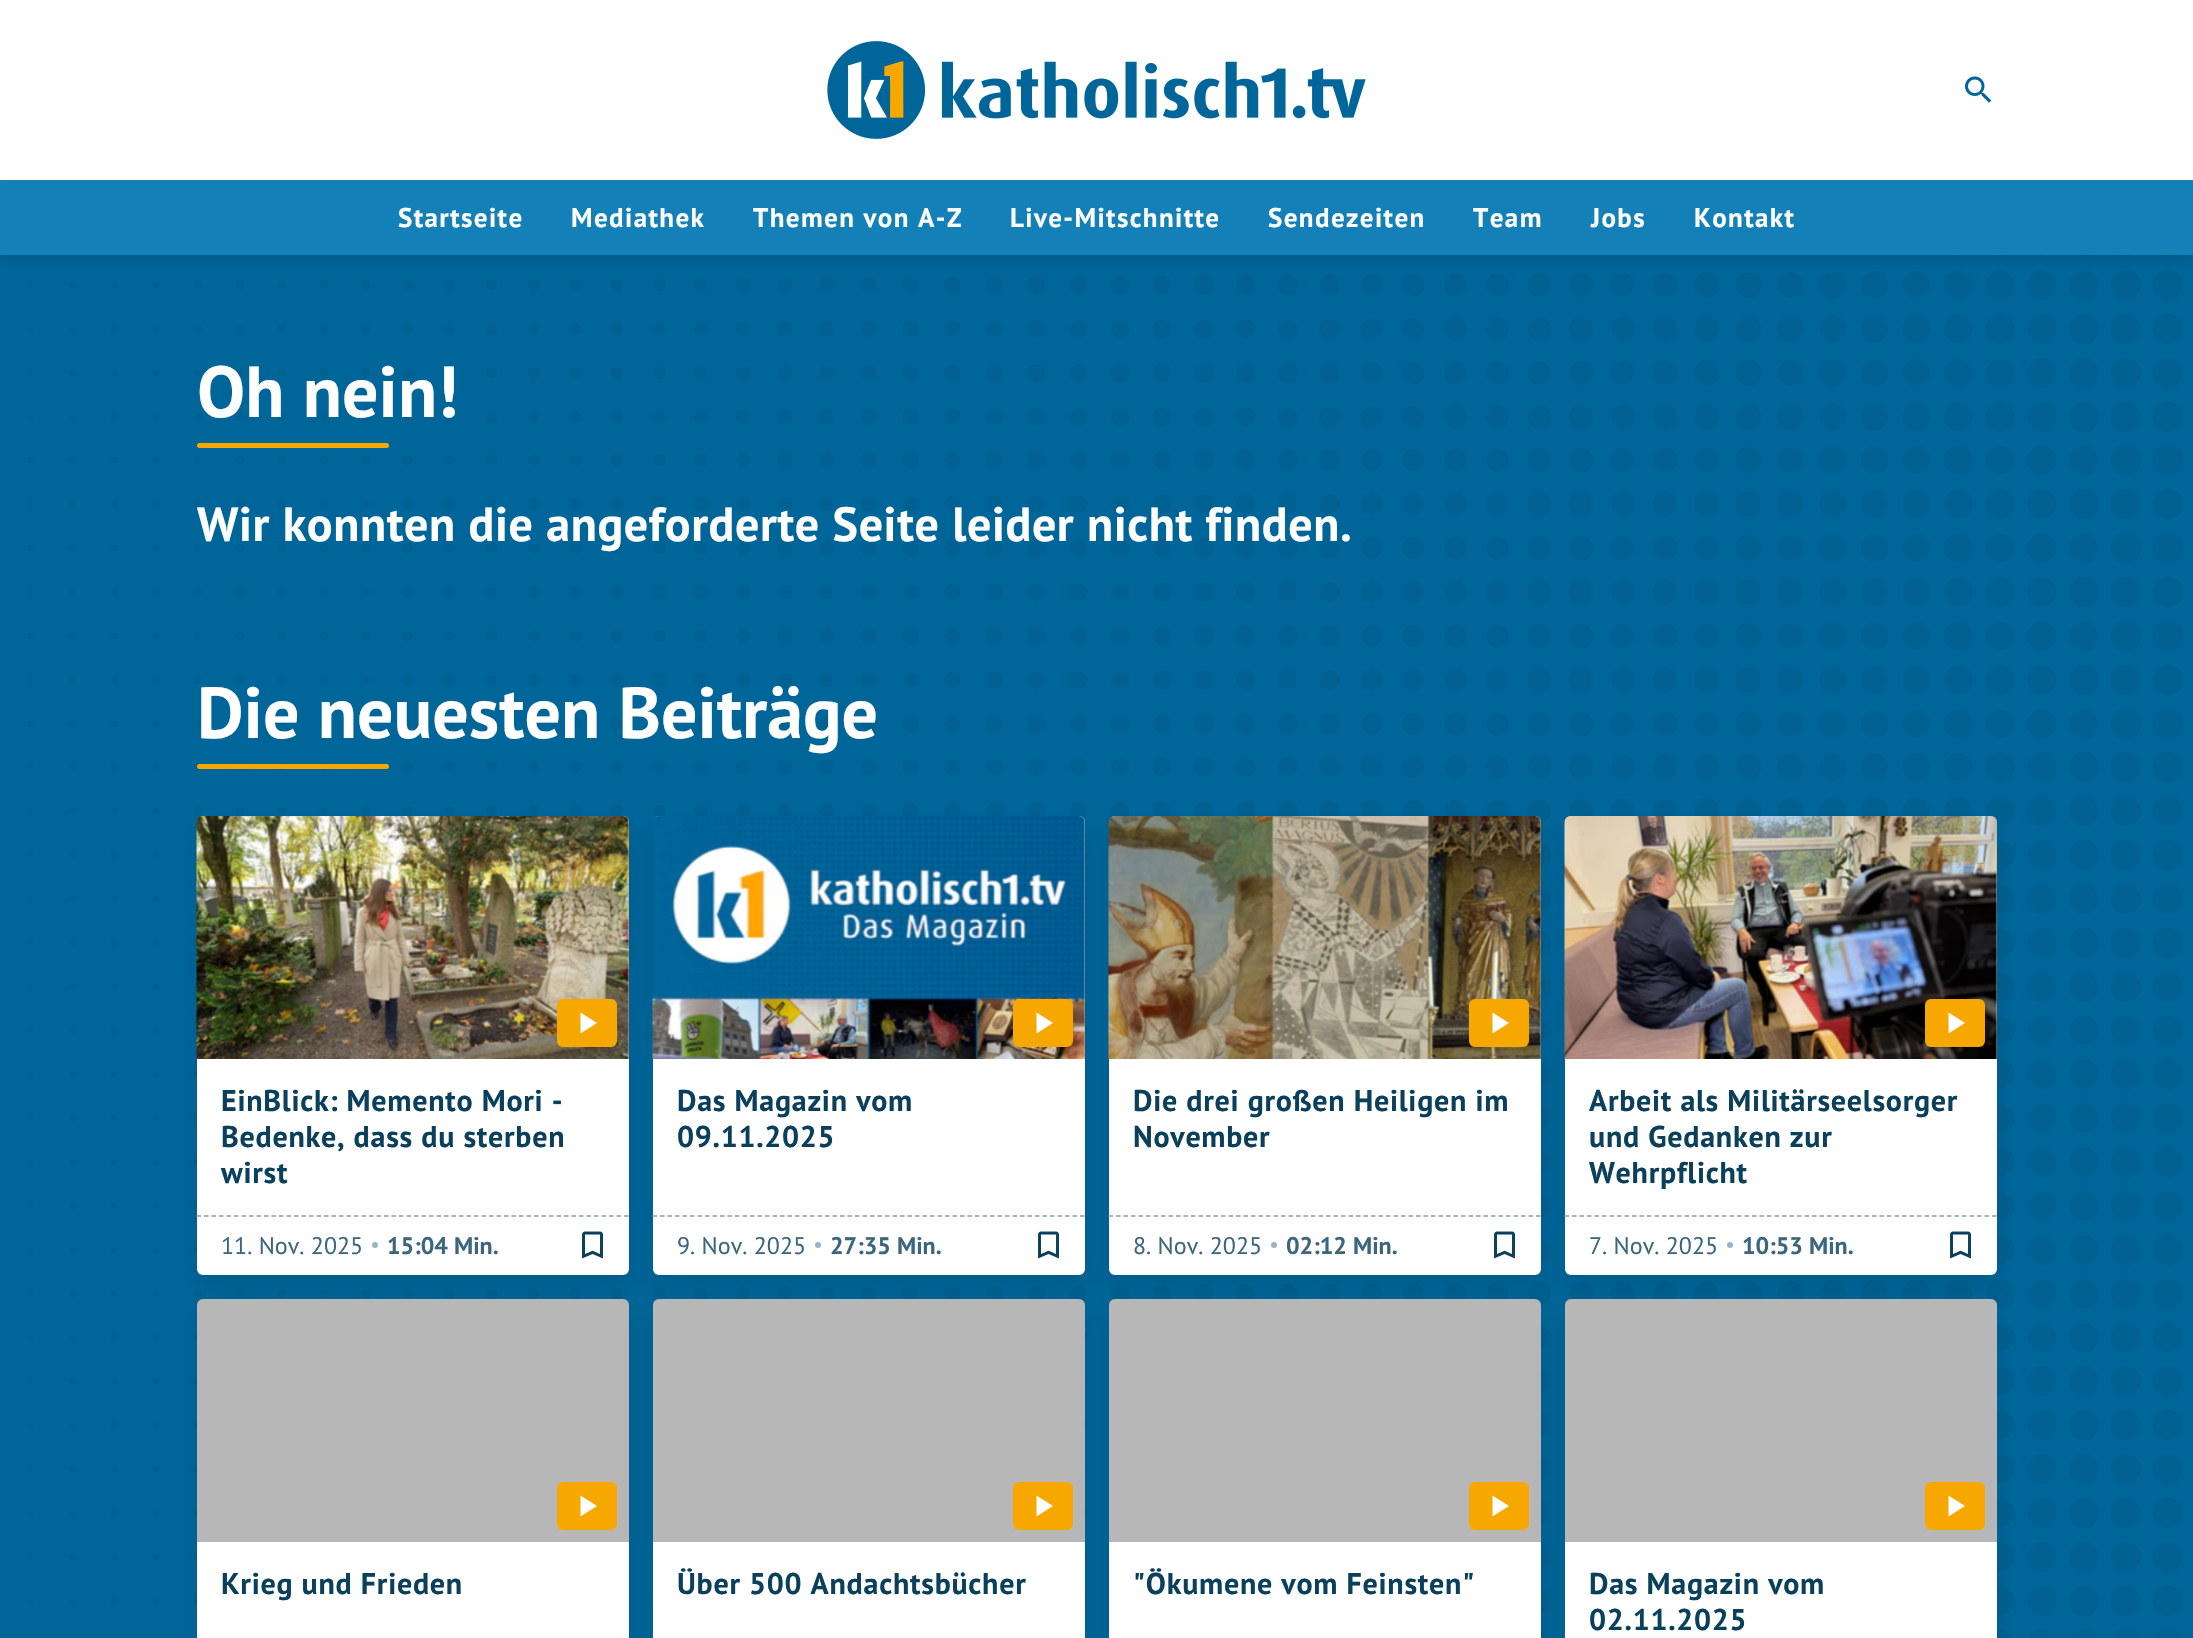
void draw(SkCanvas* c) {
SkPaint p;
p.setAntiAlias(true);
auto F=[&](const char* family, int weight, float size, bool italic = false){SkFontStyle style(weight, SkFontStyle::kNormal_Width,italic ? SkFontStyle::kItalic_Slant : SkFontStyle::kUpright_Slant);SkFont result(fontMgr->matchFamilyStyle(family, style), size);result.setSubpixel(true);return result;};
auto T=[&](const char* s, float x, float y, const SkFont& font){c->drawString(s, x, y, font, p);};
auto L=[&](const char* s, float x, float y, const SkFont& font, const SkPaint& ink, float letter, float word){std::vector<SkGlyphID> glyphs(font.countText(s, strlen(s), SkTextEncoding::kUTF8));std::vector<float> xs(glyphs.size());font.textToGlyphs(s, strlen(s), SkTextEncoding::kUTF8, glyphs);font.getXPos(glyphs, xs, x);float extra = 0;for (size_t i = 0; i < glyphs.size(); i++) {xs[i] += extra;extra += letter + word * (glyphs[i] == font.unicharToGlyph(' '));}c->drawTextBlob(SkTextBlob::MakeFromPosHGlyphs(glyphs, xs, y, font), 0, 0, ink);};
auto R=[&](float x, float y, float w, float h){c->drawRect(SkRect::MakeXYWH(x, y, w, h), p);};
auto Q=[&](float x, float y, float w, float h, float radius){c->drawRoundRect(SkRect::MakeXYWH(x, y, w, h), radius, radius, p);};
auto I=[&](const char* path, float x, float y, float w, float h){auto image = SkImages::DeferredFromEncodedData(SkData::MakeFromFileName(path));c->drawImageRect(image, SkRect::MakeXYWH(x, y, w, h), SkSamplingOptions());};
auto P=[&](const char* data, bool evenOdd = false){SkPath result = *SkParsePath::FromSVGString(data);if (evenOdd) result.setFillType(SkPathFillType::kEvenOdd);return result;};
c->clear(0xffffffff);
I("1.png",827,41,539,98);
I("2.png",1965,76,27,27);
p.setColor(0xff00669a);
R(0,255,2193,1383);
I("3.png",28,255,2155,1383);
p.setColor(0x1a000000);
p.setMaskFilter(SkMaskFilter::MakeBlur(kNormal_SkBlurStyle, 6));
c->drawRect(SkRect::MakeXYWH(0,186,2193,75),p);
p.setMaskFilter(nullptr);
p.setColor(0xff1480b8);
R(0,180,2193,75);
auto f1 = F("PT Sans",700,27);
p.setColor(0xffffffff);
L("Startseite",398,227,f1,p,1.4,0);
L("Mediathek",571,227,f1,p,1.4,0);
L("Themen von A-Z",753,227,f1,p,1.4,0);
L("Live-Mitschnitte",1010,227,f1,p,1.4,0);
L("Sendezeiten",1268,227,f1,p,1.4,0);
L("Team",1473,227,f1,p,1.4,0);
L("Jobs",1591,227,f1,p,1.4,0);
L("Kontakt",1694,227,f1,p,1.4,0);
auto f2 = F("PT Sans",700,72);
T("Oh nein!",197,417,f2);
p.setColor(0xfff6a800);
Q(197,443,192,5,2.5);
auto f3 = F("PT Sans",700,48);
p.setColor(0xffffffff);
L("Wir konnten die angeforderte Seite leider nicht finden.",197,541,f3,p,.6,0);
T("Die neuesten Beiträge",197,738,f2);
p.setColor(0xfff6a800);
Q(197,764,192,5,2.5);
p.setColor(0x1a000000);
p.setMaskFilter(SkMaskFilter::MakeBlur(kNormal_SkBlurStyle, 12));
c->drawRoundRect(SkRect::MakeXYWH(197,828,432,459),6,6,p);
p.setMaskFilter(nullptr);
p.setColor(0xffffffff);
Q(197,816,432,459,6);
p.setColor(0x33000000);
c->drawPath(P("M203 816h420c3.5 0 6 2.5 6 6v237h-432v-237c0-3.5 2.5-6 6-6z"),p);
p.setColor(0x1a000000);
c->drawPath(P("M203 816h420c3.5 0 6 2.5 6 6v237h-432v-237c0-3.5 2.5-6 6-6z"),p);
I("4.png",196,816,433,243);
p.setColor(0xfff6a800);
Q(557,999,60,48,6);
p.setColor(0xffffffff);
c->drawPath(P("M580.5 1012.5l16.5 10.5l-16.5 10.5z"),p);
auto f4 = F("PT Sans",700,30);
p.setColor(0xff0a405c);
L("EinBlick: Memento Mori -",221,1111,f4,p,.75,0);
L("Bedenke, dass du sterben",221,1147,f4,p,.75,0);
L("wirst",221,1183,f4,p,.75,0);
p.setStroke(true);
p.setStrokeWidth(1.5);
p.setColor(0xff85a0ae);
p.setPathEffect(SkDashPathEffect::Make({{4.5f,3}}, 0));
c->drawPath(P("M196.5 1216h432"),p);
p.setPathEffect(nullptr);
auto f5 = F("PT Sans",400,24);
p.setStroke(false);
p.setColor(0xff3b667d);
T("11. Nov. 2025",221,1254,f5);
p.setColor(0xff9db3be);
c->drawCircle(375,1245,3,p);
auto f6 = F("PT Sans",700,24);
p.setColor(0xff3b667d);
T("15:04 Min.",387,1254,f6);
I("5.png",582,1231,21,28);
p.setColor(0x1a000000);
p.setMaskFilter(SkMaskFilter::MakeBlur(kNormal_SkBlurStyle, 12));
c->drawRoundRect(SkRect::MakeXYWH(653,828,432,459),6,6,p);
p.setMaskFilter(nullptr);
p.setColor(0xffffffff);
Q(653,816,432,459,6);
p.setColor(0x33000000);
c->drawPath(P("M659 816h420c3.5 0 6 2.5 6 6v237h-432v-237c0-3.5 2.5-6 6-6z"),p);
p.setColor(0x1a000000);
c->drawPath(P("M659 816h420c3.5 0 6 2.5 6 6v237h-432v-237c0-3.5 2.5-6 6-6z"),p);
I("6.png",652,816,433,243);
p.setColor(0xfff6a800);
Q(1013,999,60,48,6);
p.setColor(0xffffffff);
c->drawPath(P("M1036.5 1012.5l16.5 10.5l-16.5 10.5z"),p);
p.setColor(0xff0a405c);
L("Das Magazin vom",677,1111,f4,p,.75,0);
L("09.11.2025",677,1147,f4,p,.75,0);
p.setStroke(true);
p.setColor(0xff85a0ae);
p.setPathEffect(SkDashPathEffect::Make({{4.5f,3}}, 0));
c->drawPath(P("M652.5 1216h432"),p);
p.setPathEffect(nullptr);
p.setStroke(false);
p.setColor(0xff3b667d);
T("9. Nov. 2025",677,1254,f5);
p.setColor(0xff9db3be);
c->drawCircle(818,1245,3,p);
p.setColor(0xff3b667d);
T("27:35 Min.",830,1254,f6);
I("5.png",1038,1231,21,28);
p.setColor(0x1a000000);
p.setMaskFilter(SkMaskFilter::MakeBlur(kNormal_SkBlurStyle, 12));
c->drawRoundRect(SkRect::MakeXYWH(1109,828,432,459),6,6,p);
p.setMaskFilter(nullptr);
p.setColor(0xffffffff);
Q(1109,816,432,459,6);
p.setColor(0x33000000);
c->drawPath(P("M1115 816h420c3.5 0 6 2.5 6 6v237h-432v-237c0-3.5 2.5-6 6-6z"),p);
p.setColor(0x1a000000);
c->drawPath(P("M1115 816h420c3.5 0 6 2.5 6 6v237h-432v-237c0-3.5 2.5-6 6-6z"),p);
I("7.png",1108,816,433,243);
p.setColor(0xfff6a800);
Q(1469,999,60,48,6);
p.setColor(0xffffffff);
c->drawPath(P("M1492.5 1012.5l16.5 10.5l-16.5 10.5z"),p);
p.setColor(0xff0a405c);
L("Die drei großen Heiligen im",1133,1111,f4,p,.75,0);
L("November",1133,1147,f4,p,.75,0);
p.setStroke(true);
p.setColor(0xff85a0ae);
p.setPathEffect(SkDashPathEffect::Make({{4.5f,3}}, 0));
c->drawPath(P("M1108.5 1216h432"),p);
p.setPathEffect(nullptr);
p.setStroke(false);
p.setColor(0xff3b667d);
T("8. Nov. 2025",1133,1254,f5);
p.setColor(0xff9db3be);
c->drawCircle(1274,1245,3,p);
p.setColor(0xff3b667d);
T("02:12 Min.",1286,1254,f6);
I("5.png",1494,1231,21,28);
p.setColor(0x1a000000);
p.setMaskFilter(SkMaskFilter::MakeBlur(kNormal_SkBlurStyle, 12));
c->drawRoundRect(SkRect::MakeXYWH(1565,828,432,459),6,6,p);
p.setMaskFilter(nullptr);
p.setColor(0xffffffff);
Q(1565,816,432,459,6);
p.setColor(0x33000000);
c->drawPath(P("M1571 816h420c3.5 0 6 2.5 6 6v237h-432v-237c0-3.5 2.5-6 6-6z"),p);
p.setColor(0x1a000000);
c->drawPath(P("M1571 816h420c3.5 0 6 2.5 6 6v237h-432v-237c0-3.5 2.5-6 6-6z"),p);
I("8.png",1564,816,433,243);
p.setColor(0xfff6a800);
Q(1925,999,60,48,6);
p.setColor(0xffffffff);
c->drawPath(P("M1948.5 1012.5l16.5 10.5l-16.5 10.5z"),p);
p.setColor(0xff0a405c);
L("Arbeit als Militärseelsorger",1589,1111,f4,p,.75,0);
L("und Gedanken zur",1589,1147,f4,p,.75,0);
L("Wehrpflicht",1589,1183,f4,p,.75,0);
p.setStroke(true);
p.setColor(0xff85a0ae);
p.setPathEffect(SkDashPathEffect::Make({{4.5f,3}}, 0));
c->drawPath(P("M1564.5 1216h432"),p);
p.setPathEffect(nullptr);
p.setStroke(false);
p.setColor(0xff3b667d);
T("7. Nov. 2025",1589,1254,f5);
p.setColor(0xff9db3be);
c->drawCircle(1730,1245,3,p);
p.setColor(0xff3b667d);
T("10:53 Min.",1742,1254,f6);
I("5.png",1950,1231,21,28);
p.setColor(0x1a000000);
p.setMaskFilter(SkMaskFilter::MakeBlur(kNormal_SkBlurStyle, 12));
c->drawRoundRect(SkRect::MakeXYWH(197,1311,432,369),6,6,p);
p.setMaskFilter(nullptr);
p.setColor(0xffffffff);
Q(197,1299,432,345,6);
p.setColor(0x33000000);
c->drawPath(P("M203 1299h420c3.5 0 6 2.5 6 6v237h-432v-237c0-3.5 2.5-6 6-6z"),p);
p.setColor(0x1a000000);
c->drawPath(P("M203 1299h420c3.5 0 6 2.5 6 6v237h-432v-237c0-3.5 2.5-6 6-6z"),p);
p.setColor(0xfff6a800);
Q(557,1482,60,48,6);
p.setColor(0xffffffff);
c->drawPath(P("M580.5 1495.5l16.5 10.5l-16.5 10.5z"),p);
p.setColor(0xff0a405c);
L("Krieg und Frieden",221,1594,f4,p,.75,0);
p.setColor(0x1a000000);
p.setMaskFilter(SkMaskFilter::MakeBlur(kNormal_SkBlurStyle, 12));
c->drawRoundRect(SkRect::MakeXYWH(653,1311,432,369),6,6,p);
p.setMaskFilter(nullptr);
p.setColor(0xffffffff);
Q(653,1299,432,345,6);
p.setColor(0x33000000);
c->drawPath(P("M659 1299h420c3.5 0 6 2.5 6 6v237h-432v-237c0-3.5 2.5-6 6-6z"),p);
p.setColor(0x1a000000);
c->drawPath(P("M659 1299h420c3.5 0 6 2.5 6 6v237h-432v-237c0-3.5 2.5-6 6-6z"),p);
p.setColor(0xfff6a800);
Q(1013,1482,60,48,6);
p.setColor(0xffffffff);
c->drawPath(P("M1036.5 1495.5l16.5 10.5l-16.5 10.5z"),p);
p.setColor(0xff0a405c);
L("Über 500 Andachtsbücher",677,1594,f4,p,.75,0);
p.setColor(0x1a000000);
p.setMaskFilter(SkMaskFilter::MakeBlur(kNormal_SkBlurStyle, 12));
c->drawRoundRect(SkRect::MakeXYWH(1109,1311,432,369),6,6,p);
p.setMaskFilter(nullptr);
p.setColor(0xffffffff);
Q(1109,1299,432,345,6);
p.setColor(0x33000000);
c->drawPath(P("M1115 1299h420c3.5 0 6 2.5 6 6v237h-432v-237c0-3.5 2.5-6 6-6z"),p);
p.setColor(0x1a000000);
c->drawPath(P("M1115 1299h420c3.5 0 6 2.5 6 6v237h-432v-237c0-3.5 2.5-6 6-6z"),p);
p.setColor(0xfff6a800);
Q(1469,1482,60,48,6);
p.setColor(0xffffffff);
c->drawPath(P("M1492.5 1495.5l16.5 10.5l-16.5 10.5z"),p);
p.setColor(0xff0a405c);
L("\"Ökumene vom Feinsten\"",1133,1594,f4,p,.75,0);
p.setColor(0x1a000000);
p.setMaskFilter(SkMaskFilter::MakeBlur(kNormal_SkBlurStyle, 12));
c->drawRoundRect(SkRect::MakeXYWH(1565,1311,432,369),6,6,p);
p.setMaskFilter(nullptr);
p.setColor(0xffffffff);
Q(1565,1299,432,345,6);
p.setColor(0x33000000);
c->drawPath(P("M1571 1299h420c3.5 0 6 2.5 6 6v237h-432v-237c0-3.5 2.5-6 6-6z"),p);
p.setColor(0x1a000000);
c->drawPath(P("M1571 1299h420c3.5 0 6 2.5 6 6v237h-432v-237c0-3.5 2.5-6 6-6z"),p);
p.setColor(0xfff6a800);
Q(1925,1482,60,48,6);
p.setColor(0xffffffff);
c->drawPath(P("M1948.5 1495.5l16.5 10.5l-16.5 10.5z"),p);
p.setColor(0xff0a405c);
L("Das Magazin vom",1589,1594,f4,p,.75,0);
L("02.11.2025",1589,1630,f4,p,.75,0);
}
